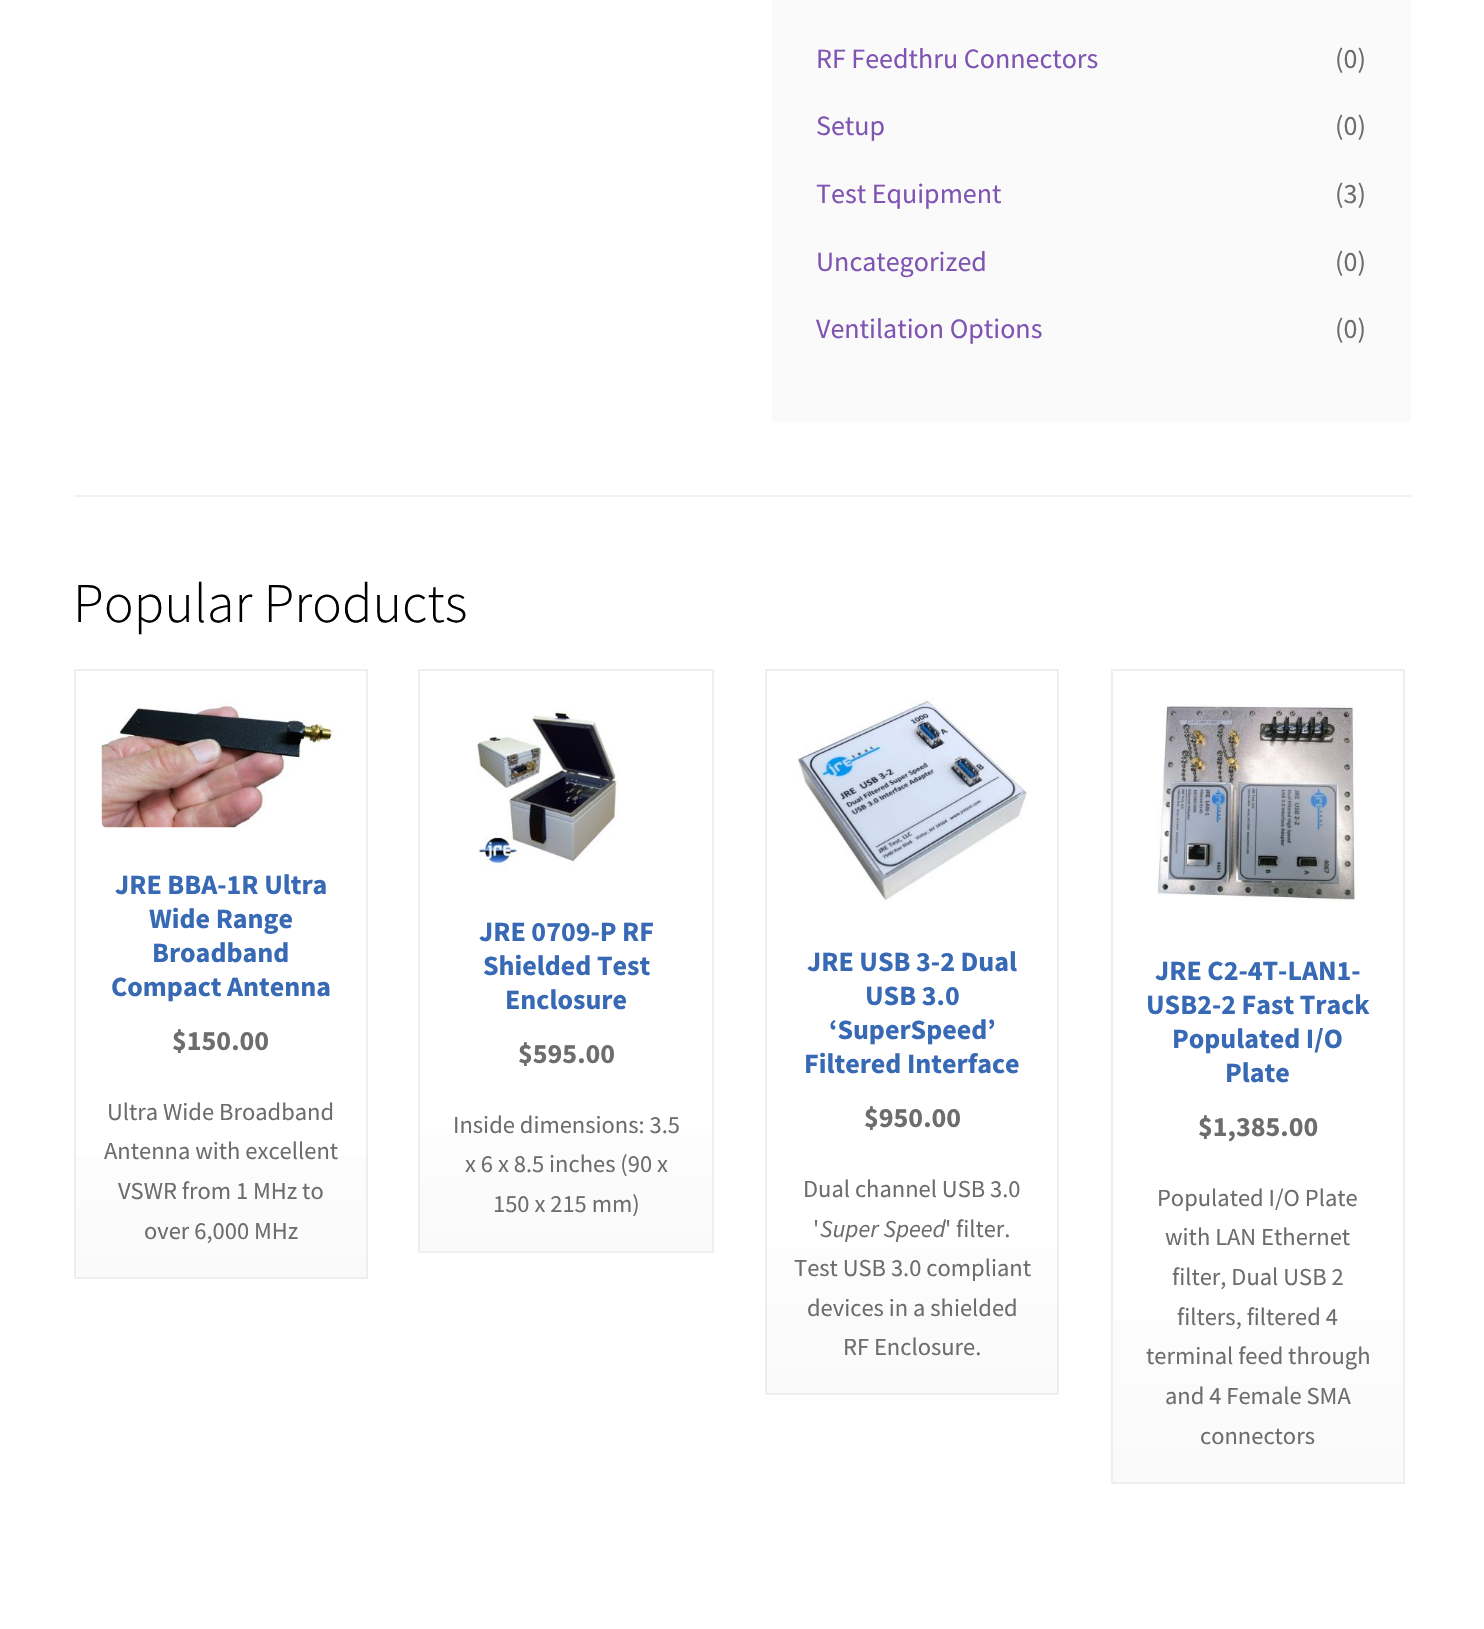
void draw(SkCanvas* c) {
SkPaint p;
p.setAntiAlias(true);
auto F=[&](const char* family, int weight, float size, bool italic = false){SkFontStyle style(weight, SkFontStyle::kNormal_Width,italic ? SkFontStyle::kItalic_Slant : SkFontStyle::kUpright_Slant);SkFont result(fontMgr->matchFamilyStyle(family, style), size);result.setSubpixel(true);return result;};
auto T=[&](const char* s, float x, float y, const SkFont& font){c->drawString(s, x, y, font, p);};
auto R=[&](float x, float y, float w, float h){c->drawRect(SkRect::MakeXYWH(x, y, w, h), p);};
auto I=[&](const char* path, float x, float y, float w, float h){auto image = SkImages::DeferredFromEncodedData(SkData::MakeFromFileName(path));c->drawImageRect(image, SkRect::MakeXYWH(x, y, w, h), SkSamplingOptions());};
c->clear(0xffffffff);
p.setColor(0xfff2f2f2);
R(74,495,1337,2);
p.setColor(0xfffafafa);
R(772,0,639,422);
auto f1 = F("Source Sans Pro",400,28);
p.setColor(0xff7f54b3);
T("RF Feedthru Connectors",816,68,f1);
p.setColor(0xff6d6d6d);
T("(0)",1335,68,f1);
p.setColor(0xff7f54b3);
T("Setup",816,135,f1);
p.setColor(0xff6d6d6d);
T("(0)",1335,135,f1);
p.setColor(0xff7f54b3);
T("Test Equipment",816,203,f1);
p.setColor(0xff6d6d6d);
T("(3)",1335,203,f1);
p.setColor(0xff7f54b3);
T("Uncategorized",816,271,f1);
p.setColor(0xff6d6d6d);
T("(0)",1335,271,f1);
p.setColor(0xff7f54b3);
T("Ventilation Options",816,338,f1);
p.setColor(0xff6d6d6d);
T("(0)",1335,338,f1);
auto f2 = F("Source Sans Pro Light",300,56);
p.setColor(0xff000000);
T("Popular Products",73,622,f2);
{
const SkColor colors[] = {0xffffffff,0xfffafafa};
const float stops[] = {.6,1};
const SkPoint ends[] = {{220,670}, {221,1278}};
p.setShader(SkGradientShader::MakeLinear(ends, colors, stops, 2, SkTileMode::kClamp));
p.setAlpha(255);
}
R(76,1156,290,121);
p.setStroke(true);
p.setStrokeWidth(2);
p.setShader(nullptr);
p.setColor(0xffeeeeee);
c->drawRect(SkRect::MakeXYWH(75,670,292,608),p);
I("1.png",101,702,236,126);
auto f3 = F("Source Sans Pro",700,28);
p.setStroke(false);
p.setColor(0xff3869b4);
T("JRE BBA-1R Ultra",115,894,f3);
T("Wide Range",149,928,f3);
T("Broadband",152,962,f3);
T("Compact Antenna",111,996,f3);
p.setColor(0xff6d6d6d);
T("$150.00",172,1050,f3);
auto f4 = F("Source Sans Pro",400,24.5);
T("Ultra Wide Broadband",107,1120,f4);
T("Antenna with excellent",104,1159,f4);
T("VSWR from 1 MHz to",118,1199,f4);
T("over 6,000 MHz",144,1239,f4);
{
const SkColor colors[] = {0xffffffff,0xfffafafa};
const float stops[] = {.6,1};
const SkPoint ends[] = {{566,670}, {566,1251}};
p.setShader(SkGradientShader::MakeLinear(ends, colors, stops, 2, SkTileMode::kClamp));
p.setAlpha(255);
}
R(420,1135,292,116);
p.setStroke(true);
p.setShader(nullptr);
p.setColor(0xffeeeeee);
c->drawRect(SkRect::MakeXYWH(419,670,294,582),p);
I("2.png",476,708,143,165);
p.setStroke(false);
p.setColor(0xff3869b4);
T("JRE 0709-P RF",479,941,f3);
T("Shielded Test",483,975,f3);
T("Enclosure",505,1009,f3);
p.setColor(0xff6d6d6d);
T("$595.00",518,1063,f3);
T("Inside dimensions: 3.5",453,1133,f4);
T("x 6 x 8.5 inches (90 x",465,1172,f4);
T("150 x 215 mm)",493,1212,f4);
{
const SkColor colors[] = {0xffffffff,0xfffafafa};
const float stops[] = {.6,1};
const SkPoint ends[] = {{912,670}, {912,1393}};
p.setShader(SkGradientShader::MakeLinear(ends, colors, stops, 2, SkTileMode::kClamp));
p.setAlpha(255);
}
R(767,1248,290,145);
p.setStroke(true);
p.setShader(nullptr);
p.setColor(0xffeeeeee);
c->drawRect(SkRect::MakeXYWH(766,670,292,724),p);
I("3.png",797,697,231,205);
p.setStroke(false);
p.setColor(0xff3869b4);
T("JRE USB 3-2 Dual",807,971,f3);
T("USB 3.0",865,1005,f3);
T("‘SuperSpeed’",829,1039,f3);
T("Filtered Interface",804,1073,f3);
p.setColor(0xff6d6d6d);
T("$950.00",864,1127,f3);
T("Dual channel USB 3.0",803,1197,f4);
T("'",813,1237,f4);
auto f5 = F("Source Sans Pro",400,24.5,true);
T("Super Speed",820,1237,f5);
T("' filter.",945,1237,f4);
T("Test USB 3.0 compliant",794,1276,f4);
T("devices in a shielded",807,1316,f4);
T("RF Enclosure.",843,1355,f4);
{
const SkColor colors[] = {0xffffffff,0xfffafafa};
const float stops[] = {.6,1};
const SkPoint ends[] = {{1258,670}, {1258,1482}};
p.setShader(SkGradientShader::MakeLinear(ends, colors, stops, 2, SkTileMode::kClamp));
p.setAlpha(255);
}
R(1113,1320,290,162);
p.setStroke(true);
p.setShader(nullptr);
p.setColor(0xffeeeeee);
c->drawRect(SkRect::MakeXYWH(1112,670,292,813),p);
I("4.png",1157,704,200,198);
p.setStroke(false);
p.setColor(0xff3869b4);
T("JRE C2-4T-LAN1-",1155,980,f3);
T("USB2-2 Fast Track",1146,1014,f3);
T("Populated I/O",1172,1048,f3);
T("Plate",1225,1082,f3);
p.setColor(0xff6d6d6d);
T("$1,385.00",1198,1136,f3);
T("Populated I/O Plate",1157,1206,f4);
T("with LAN Ethernet",1165,1245,f4);
T("filter, Dual USB 2",1172,1285,f4);
T("filters, filtered 4",1177,1325,f4);
T("terminal feed through",1146,1364,f4);
T("and 4 Female SMA",1165,1404,f4);
T("connectors",1200,1444,f4);
}
